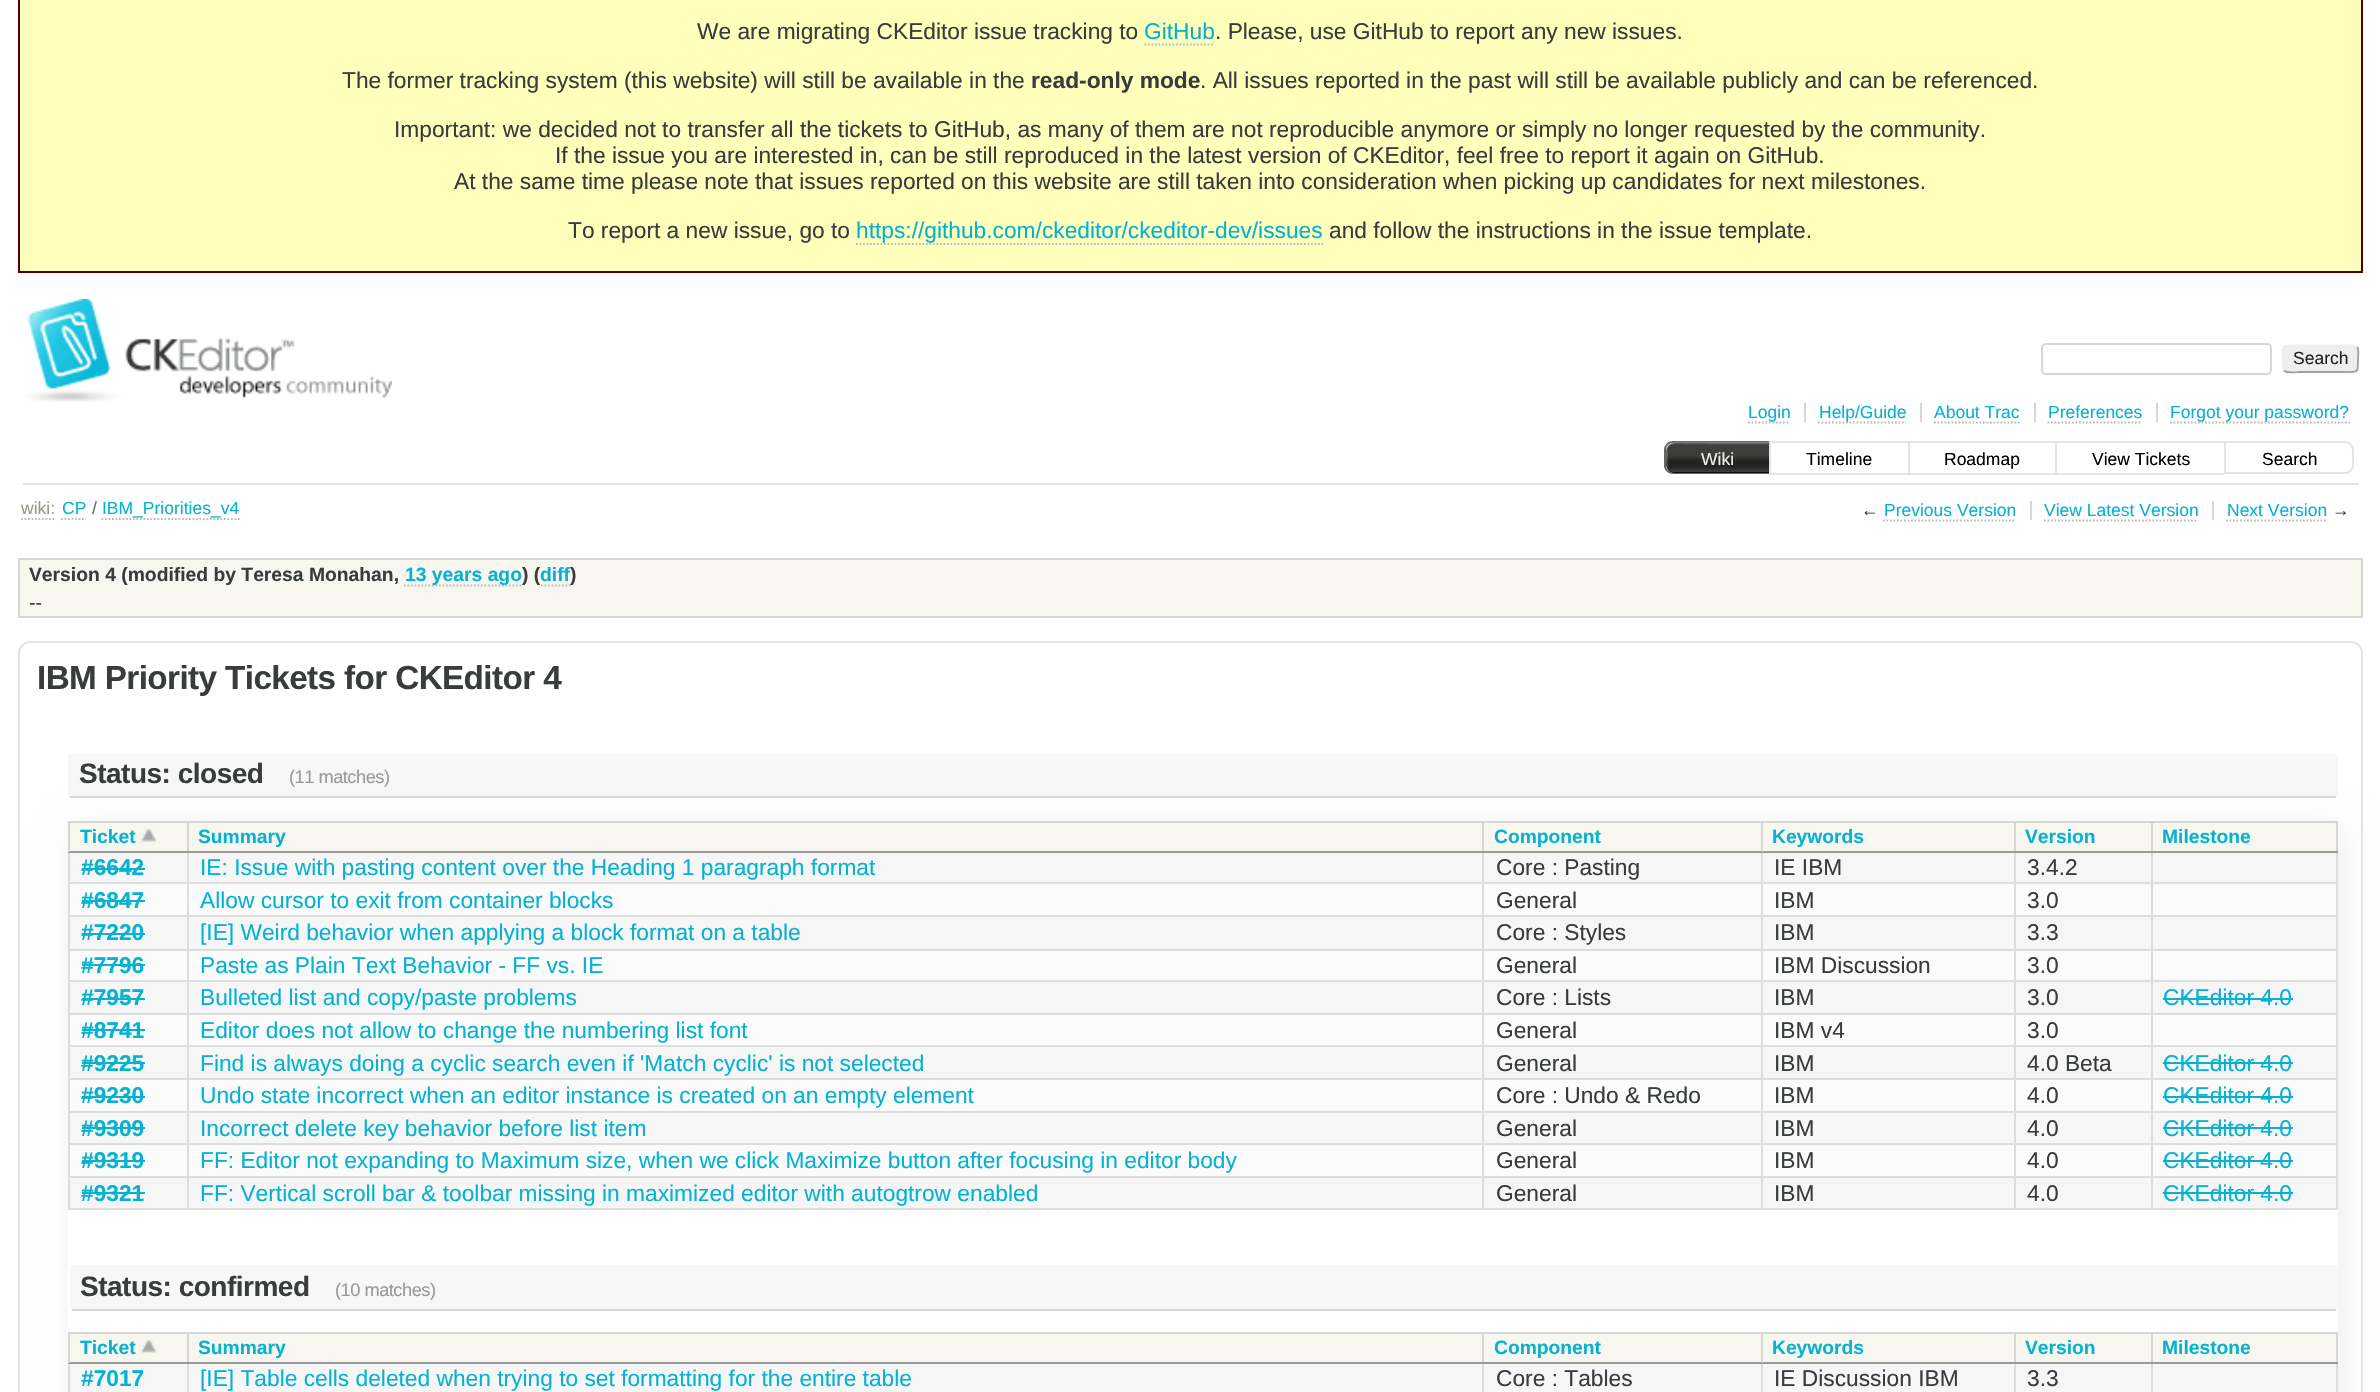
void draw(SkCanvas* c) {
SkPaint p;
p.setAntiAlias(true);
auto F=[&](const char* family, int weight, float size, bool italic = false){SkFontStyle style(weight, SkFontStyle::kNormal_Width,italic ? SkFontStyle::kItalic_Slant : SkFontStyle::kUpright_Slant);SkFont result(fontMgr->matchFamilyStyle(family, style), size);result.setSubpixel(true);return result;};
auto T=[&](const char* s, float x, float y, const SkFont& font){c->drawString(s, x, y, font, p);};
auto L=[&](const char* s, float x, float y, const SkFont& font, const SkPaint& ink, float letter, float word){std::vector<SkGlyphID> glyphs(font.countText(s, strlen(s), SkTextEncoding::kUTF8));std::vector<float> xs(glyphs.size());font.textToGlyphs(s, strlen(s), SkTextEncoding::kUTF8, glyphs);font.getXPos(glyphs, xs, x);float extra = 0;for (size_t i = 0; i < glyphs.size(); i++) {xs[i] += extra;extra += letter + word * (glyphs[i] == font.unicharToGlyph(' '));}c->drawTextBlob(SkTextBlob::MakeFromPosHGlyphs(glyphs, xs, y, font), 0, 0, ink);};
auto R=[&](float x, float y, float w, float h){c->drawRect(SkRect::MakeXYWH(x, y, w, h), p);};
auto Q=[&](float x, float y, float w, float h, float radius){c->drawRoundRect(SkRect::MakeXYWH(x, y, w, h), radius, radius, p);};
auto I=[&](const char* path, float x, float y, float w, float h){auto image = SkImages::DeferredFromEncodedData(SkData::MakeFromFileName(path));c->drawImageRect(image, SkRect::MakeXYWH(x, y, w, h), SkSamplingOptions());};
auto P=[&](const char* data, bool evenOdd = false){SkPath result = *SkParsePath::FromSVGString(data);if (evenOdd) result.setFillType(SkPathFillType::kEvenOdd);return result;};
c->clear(0xffffffff);
p.setColor(0xffffffbb);
c->drawRect(SkRect::MakeXYWH(19,-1,2343,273),p);
p.setStroke(true);
p.setStrokeWidth(2);
p.setColor(0xff550000);
c->drawRect(SkRect::MakeXYWH(19,-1,2343,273),p);
auto f1 = F("Liberation Sans",400,22.75);
p.setStroke(false);
p.setColor(0xff383c3d);
T("We are migrating CKEditor issue tracking to",697,39,f1);
p.setColor(0xff05b2d2);
T("GitHub",1144,39,f1);
p.setStroke(true);
p.setStrokeWidth(1.8);
p.setColor(0xffbbbbbb);
p.setPathEffect(SkDashPathEffect::Make({{1.75f,1.75f}}, 0));
c->drawPath(P("M1144.5 44.5h70"),p);
p.setPathEffect(nullptr);
p.setStroke(false);
p.setColor(0xff383c3d);
T(". Please, use GitHub to report any new issues.",1215,39,f1);
T("The former tracking system (this website) will still be available in the",342,88,f1);
auto f2 = F("Liberation Sans",700,22.75);
T("read-only mode",1031,88,f2);
T(". All issues reported in the past will still be available publicly and can be referenced.",1200,88,f1);
T("Important: we decided not to transfer all the tickets to GitHub, as many of them are not reproducible anymore or simply no longer requested by the community.",394,137,f1);
T("If the issue you are interested in, can be still reproduced in the latest version of CKEditor, feel free to report it again on GitHub.",555,163,f1);
T("At the same time please note that issues reported on this website are still taken into consideration when picking up candidates for next milestones.",454,189,f1);
T("To report a new issue, go to",568,238,f1);
p.setColor(0xff05b2d2);
T("https://github.com/ckeditor/ckeditor-dev/issues",856,238,f1);
p.setStroke(true);
p.setColor(0xffbbbbbb);
p.setPathEffect(SkDashPathEffect::Make({{1.75f,1.75f}}, 0));
c->drawPath(P("M856 244h467"),p);
p.setPathEffect(nullptr);
p.setStroke(false);
p.setColor(0xff383c3d);
T("and follow the instructions in the issue template.",1329,238,f1);
I("1.png",25,299,367,103);
p.setStroke(true);
p.setStrokeWidth(2);
p.setColor(0xffd7d7d7);
c->drawRoundRect(SkRect::MakeXYWH(2042,344,229,30),4,4,p);
p.setStroke(false);
p.setColor(0xffeeeeee);
Q(2282,345,77,28,5);
p.setStroke(true);
p.setStrokeWidth(1.8);
p.setColor(0xff9f9f9f);
c->drawPath(P("M2357 347c2.5 2.5 1 8.5 1 12c0 15 .5 13-15.5 13h-44c-1 0-11.5 1.5-14.5-1.5"),p);
p.setColor(0xffeeeeee);
c->drawPath(P("M2284 370.5c-2.5-2.5-1-8.5-1-11.5c0-15.5-.5-13.5 15.5-13.5h44c1 0 11.5-1.5 14.5 1.5"),p);
auto f3 = F("Liberation Sans",400,17.5);
p.setStroke(false);
p.setColor(0xff222222);
T("Search",2293,364,f3);
p.setColor(0xffd7d7d7);
R(1804,403,2,19);
p.setStroke(true);
p.setColor(0xffbbbbbb);
p.setPathEffect(SkDashPathEffect::Make({{1.75f,1.75f}}, 0));
c->drawPath(P("M1748 422.5h42"),p);
p.setPathEffect(nullptr);
p.setStroke(false);
p.setColor(0xff05b2d2);
T("Login",1748,418,f3);
p.setColor(0xffd7d7d7);
R(1920,403,2,19);
p.setStroke(true);
p.setColor(0xffbbbbbb);
p.setPathEffect(SkDashPathEffect::Make({{1.75f,1.75f}}, 0));
c->drawPath(P("M1818 422.5h88"),p);
p.setPathEffect(nullptr);
p.setStroke(false);
p.setColor(0xff05b2d2);
T("Help/Guide",1819,418,f3);
p.setColor(0xffd7d7d7);
R(2034,403,2,19);
p.setColor(0xff05b2d2);
T("About Trac",1934,418,f3);
p.setStroke(true);
p.setColor(0xffbbbbbb);
p.setPathEffect(SkDashPathEffect::Make({{1.75f,1.75f}}, 0));
c->drawPath(P("M1934 422.5h85.5"),p);
p.setPathEffect(nullptr);
p.setStroke(false);
p.setColor(0xffd7d7d7);
R(2156,403,2,19);
p.setColor(0xff05b2d2);
T("Preferences",2048,418,f3);
p.setStroke(true);
p.setColor(0xffbbbbbb);
p.setPathEffect(SkDashPathEffect::Make({{1.75f,1.75f}}, 0));
c->drawPath(P("M2047.5 422.5h94.5"),p);
p.setPathEffect(nullptr);
p.setPathEffect(SkDashPathEffect::Make({{1.75f,1.75f}}, 0));
c->drawPath(P("M2170 422.5h180"),p);
p.setPathEffect(nullptr);
p.setStroke(false);
p.setColor(0xff05b2d2);
T("Forgot your password?",2170,418,f3);
p.setColor(0xffe4e4e4);
R(23,483,2336,2);
p.setColor(0xff666666);
c->drawPath(P("M1673 441h96v33h-96c-5 0-9-4-9-8v-16c0-5 4-9 9-9zm0 2h96v29h-96c-4 0-7-3-7-6v-16c0-4 3-7 7-7z",true),p);
p.setColor(0xff000000);
c->drawPath(P("M1675 443h94v30h-94c-5 0-9-4-9-9v-12c0-5 4-9 9-9z"),p);
I("2.png",1666,442,103,31);
p.setColor(0xffeeeeee);
T("Wiki",1701,465,f3);
p.setColor(0xffe4e4e4);
R(1769,441,455,2);
R(1769,473,455,2);
R(1769,441,2,33);
p.setColor(0xff000000);
T("Timeline",1806,465,f3);
p.setColor(0xffe4e4e4);
R(1908,441,2,33);
p.setColor(0xff000000);
T("Roadmap",1944,465,f3);
p.setColor(0xffe4e4e4);
R(2055,441,2,33);
p.setColor(0xff000000);
T("View Tickets",2092,465,f3);
p.setStroke(true);
p.setStrokeWidth(2);
p.setColor(0xffe4e4e4);
c->drawPath(P("M2225 442h120c4.5 0 8 3.5 8 8v15c0 4.5-3.5 8-8 8h-120z"),p);
p.setStroke(false);
p.setColor(0xff000000);
T("Search",2262,465,f3);
p.setStroke(true);
p.setStrokeWidth(1.8);
p.setColor(0xffbbbbbb);
p.setPathEffect(SkDashPathEffect::Make({{1.75f,1.75f}}, 0));
c->drawPath(P("M21 519h33"),p);
p.setPathEffect(nullptr);
p.setStroke(false);
p.setColor(0xff999988);
T("wiki:",21,514,f3);
p.setStroke(true);
p.setColor(0xffbbbbbb);
p.setPathEffect(SkDashPathEffect::Make({{1.75f,1.75f}}, 0));
c->drawPath(P("M61 519h25"),p);
p.setPathEffect(nullptr);
p.setStroke(false);
p.setColor(0xff05b2d2);
T("CP",62,514,f3);
p.setColor(0xff666666);
T("/",92,514,f3);
p.setStroke(true);
p.setColor(0xffbbbbbb);
p.setPathEffect(SkDashPathEffect::Make({{1.75f,1.75f}}, 0));
c->drawPath(P("M101.5 519h138.5"),p);
p.setPathEffect(nullptr);
p.setStroke(false);
p.setColor(0xff05b2d2);
T("IBM_Priorities_v4",102,514,f3);
p.setColor(0xffd7d7d7);
R(2030,501,2,19);
p.setColor(0xff383c3d);
T("←",1861,516,f3);
p.setStroke(true);
p.setColor(0xffbbbbbb);
p.setPathEffect(SkDashPathEffect::Make({{1.75f,1.75f}}, 0));
c->drawPath(P("M1883 520.5h133"),p);
p.setPathEffect(nullptr);
p.setStroke(false);
p.setColor(0xff05b2d2);
T("Previous Version",1884,516,f3);
p.setColor(0xffd7d7d7);
R(2212,501,2,19);
p.setColor(0xff05b2d2);
T("View Latest Version",2044,516,f3);
p.setStroke(true);
p.setColor(0xffbbbbbb);
p.setPathEffect(SkDashPathEffect::Make({{1.75f,1.75f}}, 0));
c->drawPath(P("M2044 520.5h154"),p);
p.setPathEffect(nullptr);
p.setStroke(false);
p.setColor(0xff05b2d2);
T("Next Version",2227,516,f3);
p.setStroke(true);
p.setColor(0xffbbbbbb);
p.setPathEffect(SkDashPathEffect::Make({{1.75f,1.75f}}, 0));
c->drawPath(P("M2226 520.5h101.5"),p);
p.setPathEffect(nullptr);
p.setStroke(false);
p.setColor(0xff383c3d);
T("→",2332,516,f3);
p.setColor(0xfff7f7f0);
R(20,560,2341,56);
p.setColor(0xffd7d7d7);
R(18,558,2345,2);
R(2361,558,2,60);
R(18,616,2345,2);
R(18,558,2,60);
auto f4 = F("Liberation Sans",700,19.3);
p.setColor(0xff383c3d);
T("Version 4 (modified by Teresa Monahan,",29,581,f4);
p.setStroke(true);
p.setColor(0xffbbbbbb);
p.setPathEffect(SkDashPathEffect::Make({{1.75f,1.75f}}, 0));
c->drawPath(P("M404 585.5h117.5"),p);
p.setPathEffect(nullptr);
p.setStroke(false);
p.setColor(0xff05b2d2);
T("13 years ago",405,581,f4);
p.setColor(0xff383c3d);
T(") (",522,581,f4);
p.setColor(0xff05b2d2);
T("diff",540,581,f4);
p.setStroke(true);
p.setColor(0xffbbbbbb);
p.setPathEffect(SkDashPathEffect::Make({{1.75f,1.75f}}, 0));
c->drawPath(P("M541 585.5h29.5"),p);
p.setPathEffect(nullptr);
p.setStroke(false);
p.setColor(0xff383c3d);
T(")",570,581,f4);
auto f5 = F("Liberation Sans",400,19.3);
T("--",29,609,f5);
p.setStroke(true);
p.setStrokeWidth(2);
p.setColor(0xffe4e4e4);
c->drawRoundRect(SkRect::MakeXYWH(19,642,2343,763),11,11,p);
auto f6 = F("Liberation Sans",700,33.25);
p.setStroke(false);
p.setColor(0xff383c3d);
L("IBM Priority Tickets for CKEditor 4",37,689,f6,p,-.6,0);
p.setColor(0xfff7f7f7);
Q(68,754,2270,44,2.5);
p.setColor(0xffd7d7d7);
R(70,796,2266,2);
c->save();
c->clipPath(P("M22 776h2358v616h-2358zm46 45h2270v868h-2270z",true),true);
p.setColor(0xffeeeeee);
p.setMaskFilter(SkMaskFilter::MakeBlur(kNormal_SkBlurStyle, 17));
c->drawRect(SkRect::MakeXYWH(74,828,2269,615),p);
p.setMaskFilter(nullptr);
c->restore();
auto f7 = F("Liberation Sans",700,28);
p.setColor(0xff383c3d);
L("Status: closed",79,783,f7,p,-.5,0);
auto f8 = F("Liberation Sans",400,18.25);
p.setColor(0xff999999);
L("(11 matches)",289,783,f8,p,-.5,0);
p.setColor(0xfff7f7f0);
R(70,823,2266,28);
p.setColor(0xffd7d7d7);
R(2151,821,187,2);
p.setColor(0xffdddddd);
R(68,915,2270,2);
R(2151,882,187,2);
R(68,980,2270,2);
R(2151,949,187,2);
R(68,1045,2270,2);
R(2151,1013,187,2);
R(68,1111,2270,2);
R(2151,1078,187,2);
R(68,1176,2270,2);
R(2151,1143,187,2);
R(2336,1176,2,33);
R(2336,1111,2,67);
R(2336,1045,2,68);
R(2336,980,2,67);
R(2336,915,2,67);
R(2336,851,2,66);
p.setColor(0xffd7d7d7);
R(2336,821,2,31);
p.setColor(0xfff6f6f6);
R(70,853,2266,29);
p.setColor(0xfffbfbfb);
R(70,884,2266,31);
p.setColor(0xfff6f6f6);
R(70,917,2266,32);
p.setColor(0xfffbfbfb);
R(70,951,2266,29);
p.setColor(0xfff6f6f6);
R(70,982,2266,31);
p.setColor(0xfffbfbfb);
R(70,1015,2266,30);
p.setColor(0xfff6f6f6);
R(70,1047,2266,31);
p.setColor(0xfffbfbfb);
R(70,1080,2266,31);
p.setColor(0xfff6f6f6);
R(70,1113,2266,30);
p.setColor(0xfffbfbfb);
R(70,1145,2266,31);
p.setColor(0xfff6f6f6);
R(70,1178,2266,30);
p.setColor(0xffdddddd);
R(2151,1208,187,2);
R(2151,1176,2,33);
R(2151,1143,2,35);
R(2014,1143,139,2);
R(2151,1111,2,34);
R(2151,1078,2,35);
R(2014,1078,139,2);
R(2151,1045,2,35);
R(2151,1013,2,34);
R(2014,1013,139,2);
R(2151,980,2,35);
R(2151,949,2,33);
R(2014,949,139,2);
R(2151,915,2,35);
R(2151,882,2,35);
R(2014,882,139,2);
R(2151,851,2,33);
p.setColor(0xff999999);
R(2151,851,187,2);
p.setColor(0xffd7d7d7);
R(2151,821,2,31);
R(2014,821,139,2);
p.setColor(0xffdddddd);
R(2014,1208,139,2);
R(2014,1176,2,33);
R(2014,1143,2,35);
R(1761,1143,255,2);
R(2014,1111,2,34);
R(2014,1078,2,35);
R(1761,1078,255,2);
R(2014,1045,2,35);
R(2014,1013,2,34);
R(1761,1013,255,2);
R(2014,980,2,35);
R(2014,949,2,33);
R(1761,949,255,2);
R(2014,915,2,35);
R(2014,882,2,35);
R(1761,882,255,2);
R(2014,851,2,33);
p.setColor(0xff999999);
R(2014,851,139,2);
p.setColor(0xffd7d7d7);
R(2014,821,2,31);
R(1761,821,255,2);
p.setColor(0xffdddddd);
R(1761,1208,255,2);
R(1761,1176,2,33);
R(1761,1143,2,35);
R(1482,1143,280,2);
R(1761,1111,2,34);
R(1761,1078,2,35);
R(1482,1078,280,2);
R(1761,1045,2,35);
R(1761,1013,2,34);
R(1482,1013,280,2);
R(1761,980,2,35);
R(1761,949,2,33);
R(1482,949,280,2);
R(1761,915,2,35);
R(1761,882,2,35);
R(1482,882,280,2);
R(1761,851,2,33);
p.setColor(0xff999999);
R(1761,851,255,2);
p.setColor(0xffd7d7d7);
R(1761,821,2,31);
R(1482,821,280,2);
p.setColor(0xffdddddd);
R(1482,1208,280,2);
R(1482,1176,2,33);
R(1482,1143,2,35);
R(187,1143,1297,2);
R(1482,1111,2,34);
R(1482,1078,2,35);
R(187,1078,1297,2);
R(1482,1045,2,35);
R(1482,1013,2,34);
R(187,1013,1297,2);
R(1482,980,2,35);
R(1482,949,2,33);
R(187,949,1297,2);
R(1482,915,2,35);
R(1482,882,2,35);
R(187,882,1297,2);
R(1482,851,2,33);
p.setColor(0xff999999);
R(1482,851,280,2);
p.setColor(0xffd7d7d7);
R(1482,821,2,31);
R(187,821,1297,2);
p.setColor(0xffdddddd);
R(187,1208,1297,2);
R(187,1176,2,33);
R(187,1143,2,35);
R(68,1143,121,2);
R(187,1111,2,34);
R(187,1078,2,35);
R(68,1078,121,2);
R(187,1045,2,35);
R(187,1013,2,34);
R(68,1013,121,2);
R(187,980,2,35);
R(187,949,2,33);
R(68,949,121,2);
R(187,915,2,35);
R(187,882,2,35);
R(68,882,121,2);
R(187,851,2,33);
p.setColor(0xff999999);
R(187,851,1297,2);
p.setColor(0xffd7d7d7);
R(187,821,2,31);
R(68,821,121,2);
p.setColor(0xffdddddd);
R(68,1208,121,2);
R(68,1176,2,33);
R(68,1111,2,67);
R(68,1045,2,68);
R(68,980,2,67);
R(68,915,2,67);
R(68,851,2,66);
p.setColor(0xff999999);
R(68,851,121,2);
p.setColor(0xffd7d7d7);
R(68,821,2,31);
auto f9 = F("Liberation Sans",700,19.25);
p.setColor(0xff05b2d2);
T("Ticket",80,843,f9);
I("3.png",141,829,15,13);
T("Summary",198,843,f9);
T("Component",1494,843,f9);
T("Keywords",1772,843,f9);
T("Version",2025,843,f9);
T("Milestone",2162,843,f9);
T("#6642",81,875,f2);
R(82,868,63,2);
T("IE: Issue with pasting content over the Heading 1 paragraph format",200,875,f1);
p.setColor(0xff383c3d);
T("Core : Pasting",1496,875,f1);
T("IE IBM",1774,875,f1);
T("3.4.2",2027,875,f1);
p.setColor(0xff05b2d2);
T("#6847",81,908,f2);
R(82,900,63,2);
T("Allow cursor to exit from container blocks",200,908,f1);
p.setColor(0xff383c3d);
T("General",1496,908,f1);
T("IBM",1774,908,f1);
T("3.0",2027,908,f1);
p.setColor(0xff05b2d2);
T("#7220",81,940,f2);
R(82,933,63,2);
T("[IE] Weird behavior when applying a block format on a table",200,940,f1);
p.setColor(0xff383c3d);
T("Core : Styles",1496,940,f1);
T("IBM",1774,940,f1);
T("3.3",2027,940,f1);
p.setColor(0xff05b2d2);
T("#7796",81,973,f2);
R(82,964,63,2);
T("Paste as Plain Text Behavior - FF vs. IE",200,973,f1);
p.setColor(0xff383c3d);
T("General",1496,973,f1);
T("IBM Discussion",1774,973,f1);
T("3.0",2027,973,f1);
p.setColor(0xff05b2d2);
T("#7957",81,1005,f2);
R(82,998,63,2);
T("Bulleted list and copy/paste problems",200,1005,f1);
p.setColor(0xff383c3d);
T("Core : Lists",1496,1005,f1);
T("IBM",1774,1005,f1);
T("3.0",2027,1005,f1);
p.setColor(0xff05b2d2);
T("CKEditor 4.0",2163,1005,f1);
R(2163,998,130,2);
T("#8741",81,1038,f2);
R(82,1029,63,2);
T("Editor does not allow to change the numbering list font",200,1038,f1);
p.setColor(0xff383c3d);
T("General",1496,1038,f1);
T("IBM v4",1774,1038,f1);
T("3.0",2027,1038,f1);
p.setColor(0xff05b2d2);
T("#9225",81,1071,f2);
R(82,1062,63,2);
T("Find is always doing a cyclic search even if 'Match cyclic' is not selected",200,1071,f1);
p.setColor(0xff383c3d);
T("General",1496,1071,f1);
T("IBM",1774,1071,f1);
T("4.0 Beta",2027,1071,f1);
p.setColor(0xff05b2d2);
T("CKEditor 4.0",2163,1071,f1);
R(2163,1062,130,2);
T("#9230",81,1103,f2);
R(82,1096,63,2);
T("Undo state incorrect when an editor instance is created on an empty element",200,1103,f1);
p.setColor(0xff383c3d);
T("Core : Undo & Redo",1496,1103,f1);
T("IBM",1774,1103,f1);
T("4.0",2027,1103,f1);
p.setColor(0xff05b2d2);
T("CKEditor 4.0",2163,1103,f1);
R(2163,1096,130,2);
T("#9309",81,1136,f2);
R(82,1127,63,2);
T("Incorrect delete key behavior before list item",200,1136,f1);
p.setColor(0xff383c3d);
T("General",1496,1136,f1);
T("IBM",1774,1136,f1);
T("4.0",2027,1136,f1);
p.setColor(0xff05b2d2);
T("CKEditor 4.0",2163,1136,f1);
R(2163,1127,130,2);
T("#9319",81,1168,f2);
R(82,1160,63,2);
T("FF: Editor not expanding to Maximum size, when we click Maximize button after focusing in editor body",200,1168,f1);
p.setColor(0xff383c3d);
T("General",1496,1168,f1);
T("IBM",1774,1168,f1);
T("4.0",2027,1168,f1);
p.setColor(0xff05b2d2);
T("CKEditor 4.0",2163,1168,f1);
R(2163,1160,130,2);
T("#9321",81,1201,f2);
R(82,1192,63,2);
T("FF: Vertical scroll bar & toolbar missing in maximized editor with autogtrow enabled",200,1201,f1);
p.setColor(0xff383c3d);
T("General",1496,1201,f1);
T("IBM",1774,1201,f1);
T("4.0",2027,1201,f1);
p.setColor(0xff05b2d2);
T("CKEditor 4.0",2163,1201,f1);
R(2163,1192,130,2);
p.setColor(0xfff7f7f7);
Q(70,1265,2268,46,2.5);
p.setColor(0xffd7d7d7);
R(72,1309,2264,2);
p.setColor(0xff383c3d);
L("Status: confirmed",80,1296,f7,p,-.5,0);
p.setColor(0xff999999);
L("(10 matches)",335,1296,f8,p,-.5,0);
p.setColor(0xfff7f7f0);
R(70,1334,117,28);
p.setColor(0xffd7d7d7);
R(2151,1332,187,2);
p.setColor(0xffdddddd);
R(2336,1362,2,30);
p.setColor(0xffd7d7d7);
R(2336,1332,2,31);
p.setColor(0xfff6f6f6);
R(70,1364,2266,28);
p.setColor(0xffdddddd);
R(2151,1362,2,30);
p.setColor(0xff999999);
R(2151,1362,187,2);
p.setColor(0xffd7d7d7);
R(2151,1332,2,31);
R(2014,1332,139,2);
p.setColor(0xffdddddd);
R(2014,1362,2,30);
p.setColor(0xff999999);
R(2014,1362,139,2);
p.setColor(0xffd7d7d7);
R(2014,1332,2,31);
R(1761,1332,255,2);
p.setColor(0xffdddddd);
R(1761,1362,2,30);
p.setColor(0xff999999);
R(1761,1362,255,2);
p.setColor(0xffd7d7d7);
R(1761,1332,2,31);
R(1482,1332,280,2);
p.setColor(0xffdddddd);
R(1482,1362,2,30);
p.setColor(0xff999999);
R(1482,1362,280,2);
p.setColor(0xffd7d7d7);
R(1482,1332,2,31);
R(187,1332,1297,2);
p.setColor(0xffdddddd);
R(187,1362,2,30);
p.setColor(0xff999999);
R(187,1362,1297,2);
p.setColor(0xffd7d7d7);
R(187,1332,2,31);
R(68,1332,121,2);
p.setColor(0xffdddddd);
R(68,1362,2,30);
p.setColor(0xff999999);
R(68,1362,121,2);
p.setColor(0xffd7d7d7);
R(68,1332,2,31);
p.setColor(0xff05b2d2);
T("Ticket",80,1354,f9);
I("3.png",141,1340,15,13);
p.setColor(0xfff7f7f0);
R(189,1334,1293,28);
p.setColor(0xff05b2d2);
T("Summary",198,1354,f9);
p.setColor(0xfff7f7f0);
R(1484,1334,277,28);
p.setColor(0xff05b2d2);
T("Component",1494,1354,f9);
p.setColor(0xfff7f7f0);
R(1763,1334,251,28);
p.setColor(0xff05b2d2);
T("Keywords",1772,1354,f9);
p.setColor(0xfff7f7f0);
R(2016,1334,135,28);
p.setColor(0xff05b2d2);
T("Version",2025,1354,f9);
p.setColor(0xfff7f7f0);
R(2153,1334,183,28);
p.setColor(0xff05b2d2);
T("Milestone",2162,1354,f9);
T("#7017",81,1386,f2);
T("[IE] Table cells deleted when trying to set formatting for the entire table",200,1386,f1);
p.setColor(0xff383c3d);
T("Core : Tables",1496,1386,f1);
T("IE Discussion IBM",1774,1386,f1);
T("3.3",2027,1386,f1);
}
